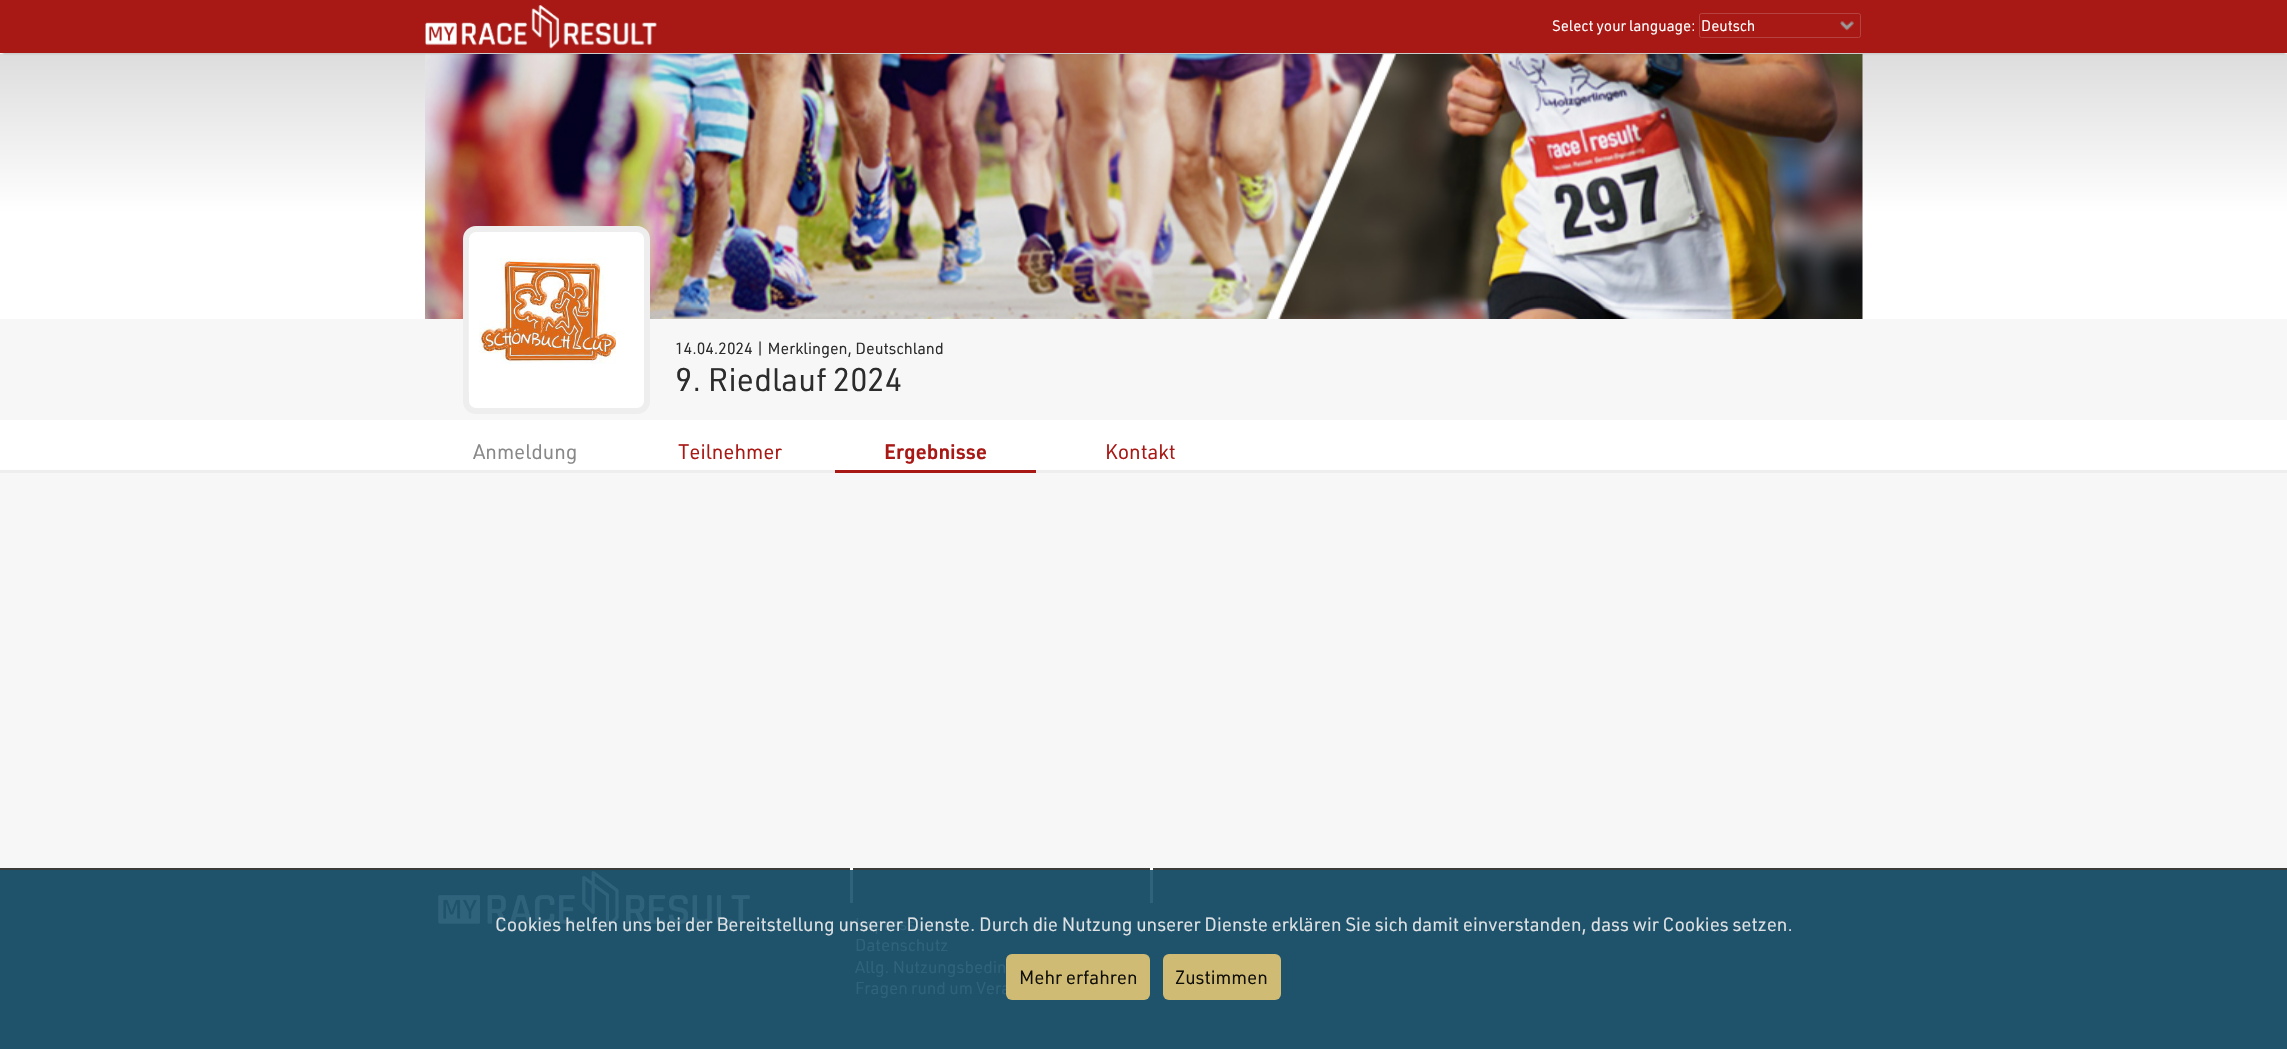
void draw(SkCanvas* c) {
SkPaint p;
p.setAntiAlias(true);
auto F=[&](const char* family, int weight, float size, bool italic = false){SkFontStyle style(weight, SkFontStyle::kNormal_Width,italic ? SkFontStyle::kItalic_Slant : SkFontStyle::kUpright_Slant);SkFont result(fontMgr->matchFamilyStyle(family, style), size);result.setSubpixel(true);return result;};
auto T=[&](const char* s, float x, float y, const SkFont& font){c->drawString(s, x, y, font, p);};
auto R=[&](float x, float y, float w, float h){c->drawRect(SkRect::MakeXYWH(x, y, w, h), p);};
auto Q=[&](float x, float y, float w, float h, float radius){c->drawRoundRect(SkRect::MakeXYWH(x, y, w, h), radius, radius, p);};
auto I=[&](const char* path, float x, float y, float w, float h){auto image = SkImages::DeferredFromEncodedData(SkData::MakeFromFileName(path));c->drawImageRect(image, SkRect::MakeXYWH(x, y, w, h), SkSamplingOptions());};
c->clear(0xfff7f7f7);
{
const SkColor colors[] = {0xffffffff,0xffdddddd};
const float stops[] = {.4,1};
const SkPoint ends[] = {{1144,319}, {1144,54}};
p.setShader(SkGradientShader::MakeLinear(ends, colors, stops, 2, SkTileMode::kClamp));
p.setAlpha(255);
}
R(0,54,2287,265);
I("3.png",425,54,1438,265);
p.setShader(nullptr);
p.setColor(0x85000000);
p.setMaskFilter(SkMaskFilter::MakeBlur(kNormal_SkBlurStyle, 1));
c->drawRect(SkRect::MakeXYWH(3,5,2282,48),p);
p.setMaskFilter(nullptr);
p.setColor(0xffa81815);
R(0,0,2287,53);
I("1.png",425,5,232,44);
auto f1 = F("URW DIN",400,15);
p.setColor(0xffffffff);
T("Select your language:",1552,31,f1);
I("2.png",1840,21,14,10);
p.setStroke(true);
p.setStrokeWidth(1);
p.setColor(0xffb74340);
c->drawRoundRect(SkRect::MakeXYWH(1699.5,13.5,161,24),2,2,p);
p.setStroke(false);
p.setColor(0xffffffff);
T("Deutsch",1701,31,f1);
c->drawRoundRect(SkRect::MakeXYWH(466,229,181,182),10,10,p);
p.setStroke(true);
p.setStrokeWidth(6);
p.setColor(0xffeeeeee);
c->drawRoundRect(SkRect::MakeXYWH(466,229,181,182),10,10,p);
I("4.png",468,248,148,144);
auto f2 = F("URW DIN",400,15.9);
p.setStroke(false);
p.setColor(0xff2c2c2c);
T("14.04.2024 | Merklingen, Deutschland",675,354,f2);
auto f3 = F("URW DIN",400,32);
T("9. Riedlauf 2024",675,391,f3);
p.setColor(0xffffffff);
R(0,420,2287,50);
p.setColor(0xffeeeeee);
R(0,470,2287,3);
auto f4 = F("URW DIN",400,20.5);
p.setColor(0xff888888);
T("Anmeldung",473,459,f4);
p.setColor(0xffa81815);
T("Teilnehmer",678,459,f4);
R(835,470,201,3);
auto f5 = F("URW DIN",600,20.5);
T("Ergebnisse",884,459,f5);
T("Kontakt",1105,459,f4);
p.setColor(0xff1f526b);
R(0,870,2287,179);
I("5.png",438,871,312,58);
auto f6 = F("URW DIN",400,16.9);
p.setColor(0xff2f627b);
T("Impressum",855,930,f6);
auto f7 = F("URW DIN",400,18.75);
p.setColor(0xffdee2e4);
T("Cookies helfen uns bei der Bereitstellung unserer Dienste. Durch die Nutzung unserer Dienste erklären Sie sich damit einverstanden, dass wir Cookies setzen.",495,931,f7);
p.setColor(0xff2f627b);
T("Fragen rund um Vera",855,994,f6);
p.setColor(0xebddc374);
Q(1006,954,144,46,6);
p.setColor(0xff100f09);
T("Mehr erfahren",1019,984,f7);
p.setColor(0xebddc374);
Q(1163,954,118,46,6);
p.setColor(0xff100f09);
T("Zustimmen",1175,984,f7);
p.setColor(0xff3c3c3b);
R(0,868,2287,2);
p.setColor(0xffffffff);
R(1150,868,3,2);
p.setColor(0xff2f627b);
R(1150,870,3,33);
p.setColor(0xffffffff);
R(850,868,3,2);
p.setColor(0xff2f627b);
R(850,870,3,33);
T("Datenschutz",855,951,f6);
T("Allg. Nutzungsbedin",855,973,f6);
}
